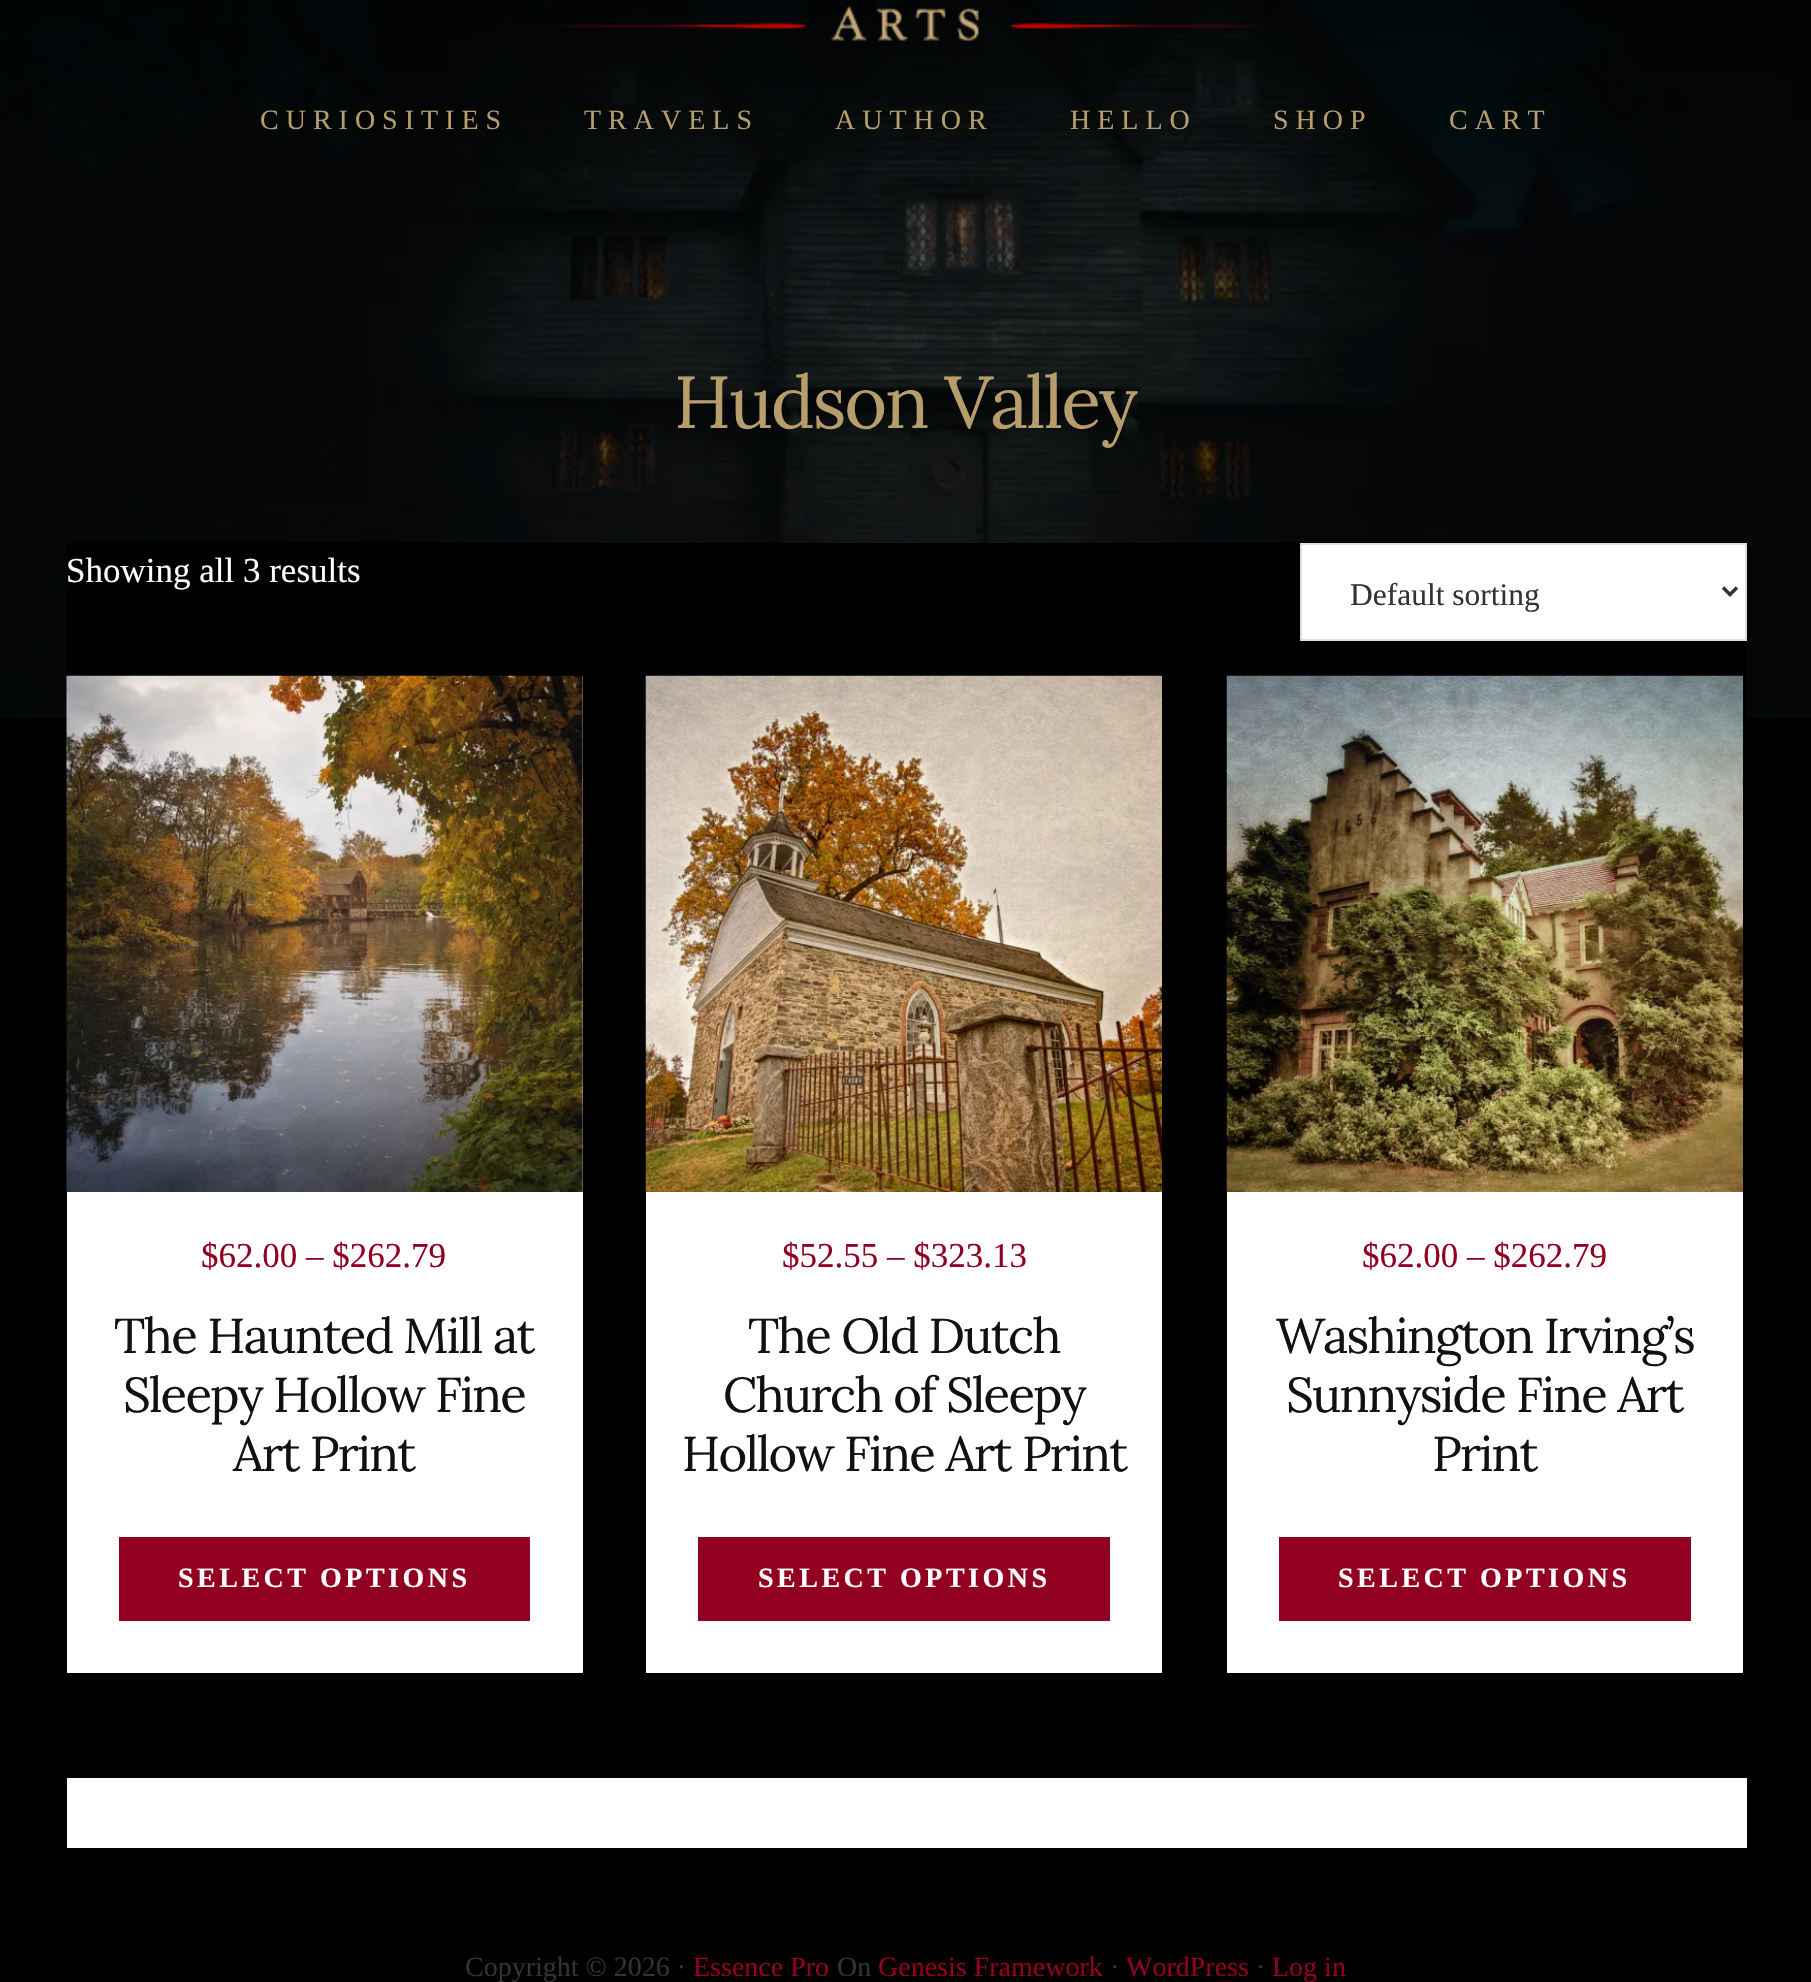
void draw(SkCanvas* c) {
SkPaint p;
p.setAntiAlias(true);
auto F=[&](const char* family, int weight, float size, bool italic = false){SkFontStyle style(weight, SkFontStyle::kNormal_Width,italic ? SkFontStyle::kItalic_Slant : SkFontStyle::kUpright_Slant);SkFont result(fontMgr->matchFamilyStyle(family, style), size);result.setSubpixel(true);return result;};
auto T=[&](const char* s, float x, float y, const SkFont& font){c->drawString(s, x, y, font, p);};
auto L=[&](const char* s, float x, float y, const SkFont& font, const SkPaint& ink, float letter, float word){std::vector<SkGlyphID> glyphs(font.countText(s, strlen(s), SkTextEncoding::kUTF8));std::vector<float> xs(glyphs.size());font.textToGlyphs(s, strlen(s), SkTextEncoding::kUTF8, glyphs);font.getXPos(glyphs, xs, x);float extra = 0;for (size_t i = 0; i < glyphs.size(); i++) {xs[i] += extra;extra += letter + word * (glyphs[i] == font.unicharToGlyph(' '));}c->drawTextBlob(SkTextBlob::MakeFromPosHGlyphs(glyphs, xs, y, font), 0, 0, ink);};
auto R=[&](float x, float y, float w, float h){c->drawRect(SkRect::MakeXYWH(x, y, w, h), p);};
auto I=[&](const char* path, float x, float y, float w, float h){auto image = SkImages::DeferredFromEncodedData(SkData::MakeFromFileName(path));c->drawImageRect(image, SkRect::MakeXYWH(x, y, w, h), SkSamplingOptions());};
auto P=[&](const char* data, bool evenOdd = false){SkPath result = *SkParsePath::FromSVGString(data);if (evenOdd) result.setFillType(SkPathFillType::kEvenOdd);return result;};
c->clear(0xff000000);
I("1.png",0,0,1811,718);
I("2.png",553,5,711,36);
auto f1 = F("Liberation Serif",400,28);
p.setColor(0xffb79d6b);
L("CURIOSITIES",260,129,f1,p,7,0);
L("TRAVELS",584,129,f1,p,7,0);
L("AUTHOR",835,129,f1,p,7,0);
L("HELLO",1070,129,f1,p,7,0);
L("SHOP",1273,129,f1,p,7,0);
L("CART",1449,129,f1,p,7,0);
auto f2 = F("Lora",400,73.5);
L("Hudson Valley",674,428,f2,p,-2.25,0);
p.setColor(0xffffffff);
R(67,1778,1680,70);
p.setColor(0xff000000);
R(67,543,1680,175);
auto f3 = F("Liberation Serif",400,35);
p.setColor(0xffffffff);
T("Showing all 3 results",66,582,f3);
c->drawRect(SkRect::MakeXYWH(1301,544,445,96),p);
p.setStroke(true);
p.setStrokeWidth(2);
p.setColor(0xffdddddd);
c->drawRect(SkRect::MakeXYWH(1301,544,445,96),p);
p.setStrokeWidth(3.5);
p.setColor(0xff333333);
c->drawPath(P("M1723 587.5l7 7l7-7"),p);
auto f4 = F("Liberation Serif",400,31.5);
p.setStroke(false);
T("Default sorting",1350,605,f4);
p.setColor(0xffffffff);
R(67,676,516,997);
I("3.png",66,675,517,517);
p.setColor(0xff910021);
T("$62.00 – $262.79",201,1267,f3);
auto f5 = F("Lora",400,49);
p.setColor(0xff111111);
L("The Haunted Mill at",114,1353,f5,p,-1.75,0);
L("Sleepy Hollow Fine",123,1412,f5,p,-1.75,0);
L("Art Print",233,1471,f5,p,-1.75,0);
p.setColor(0xff910021);
R(119,1537,411,84);
auto f6 = F("Liberation Serif",700,28);
p.setColor(0xffffffff);
L("SELECT OPTIONS",178,1587,f6,p,3.5,0);
R(646,1192,516,481);
I("4.png",645,675,517,517);
p.setColor(0xff910021);
T("$52.55 – $323.13",782,1267,f3);
p.setColor(0xff111111);
L("The Old Dutch",748,1353,f5,p,-1.75,0);
L("Church of Sleepy",723,1412,f5,p,-1.75,0);
L("Hollow Fine Art Print",682,1471,f5,p,-1.75,0);
p.setColor(0xff910021);
R(698,1537,412,84);
p.setColor(0xffffffff);
L("SELECT OPTIONS",758,1587,f6,p,3.5,0);
R(1227,1192,516,481);
I("5.png",1226,675,517,517);
p.setColor(0xff910021);
T("$62.00 – $262.79",1362,1267,f3);
p.setColor(0xff111111);
L("Washington Irving’s",1276,1353,f5,p,-1.75,0);
L("Sunnyside Fine Art",1286,1412,f5,p,-1.75,0);
L("Print",1432,1471,f5,p,-1.75,0);
p.setColor(0xff910021);
R(1279,1537,412,84);
p.setColor(0xffffffff);
L("SELECT OPTIONS",1338,1587,f6,p,3.5,0);
p.setColor(0xff333333);
T("Copyright © 2026 ·",465,1976,f1);
p.setColor(0xff910021);
T("Essence Pro",693,1976,f1);
p.setColor(0xff333333);
T("On",837,1976,f1);
p.setColor(0xff910021);
T("Genesis Framework",878,1976,f1);
p.setColor(0xff333333);
T("·",1110,1976,f1);
p.setColor(0xff910021);
T("WordPress",1126,1976,f1);
p.setColor(0xff333333);
T("·",1256,1976,f1);
p.setColor(0xff910021);
T("Log in",1272,1976,f1);
}
